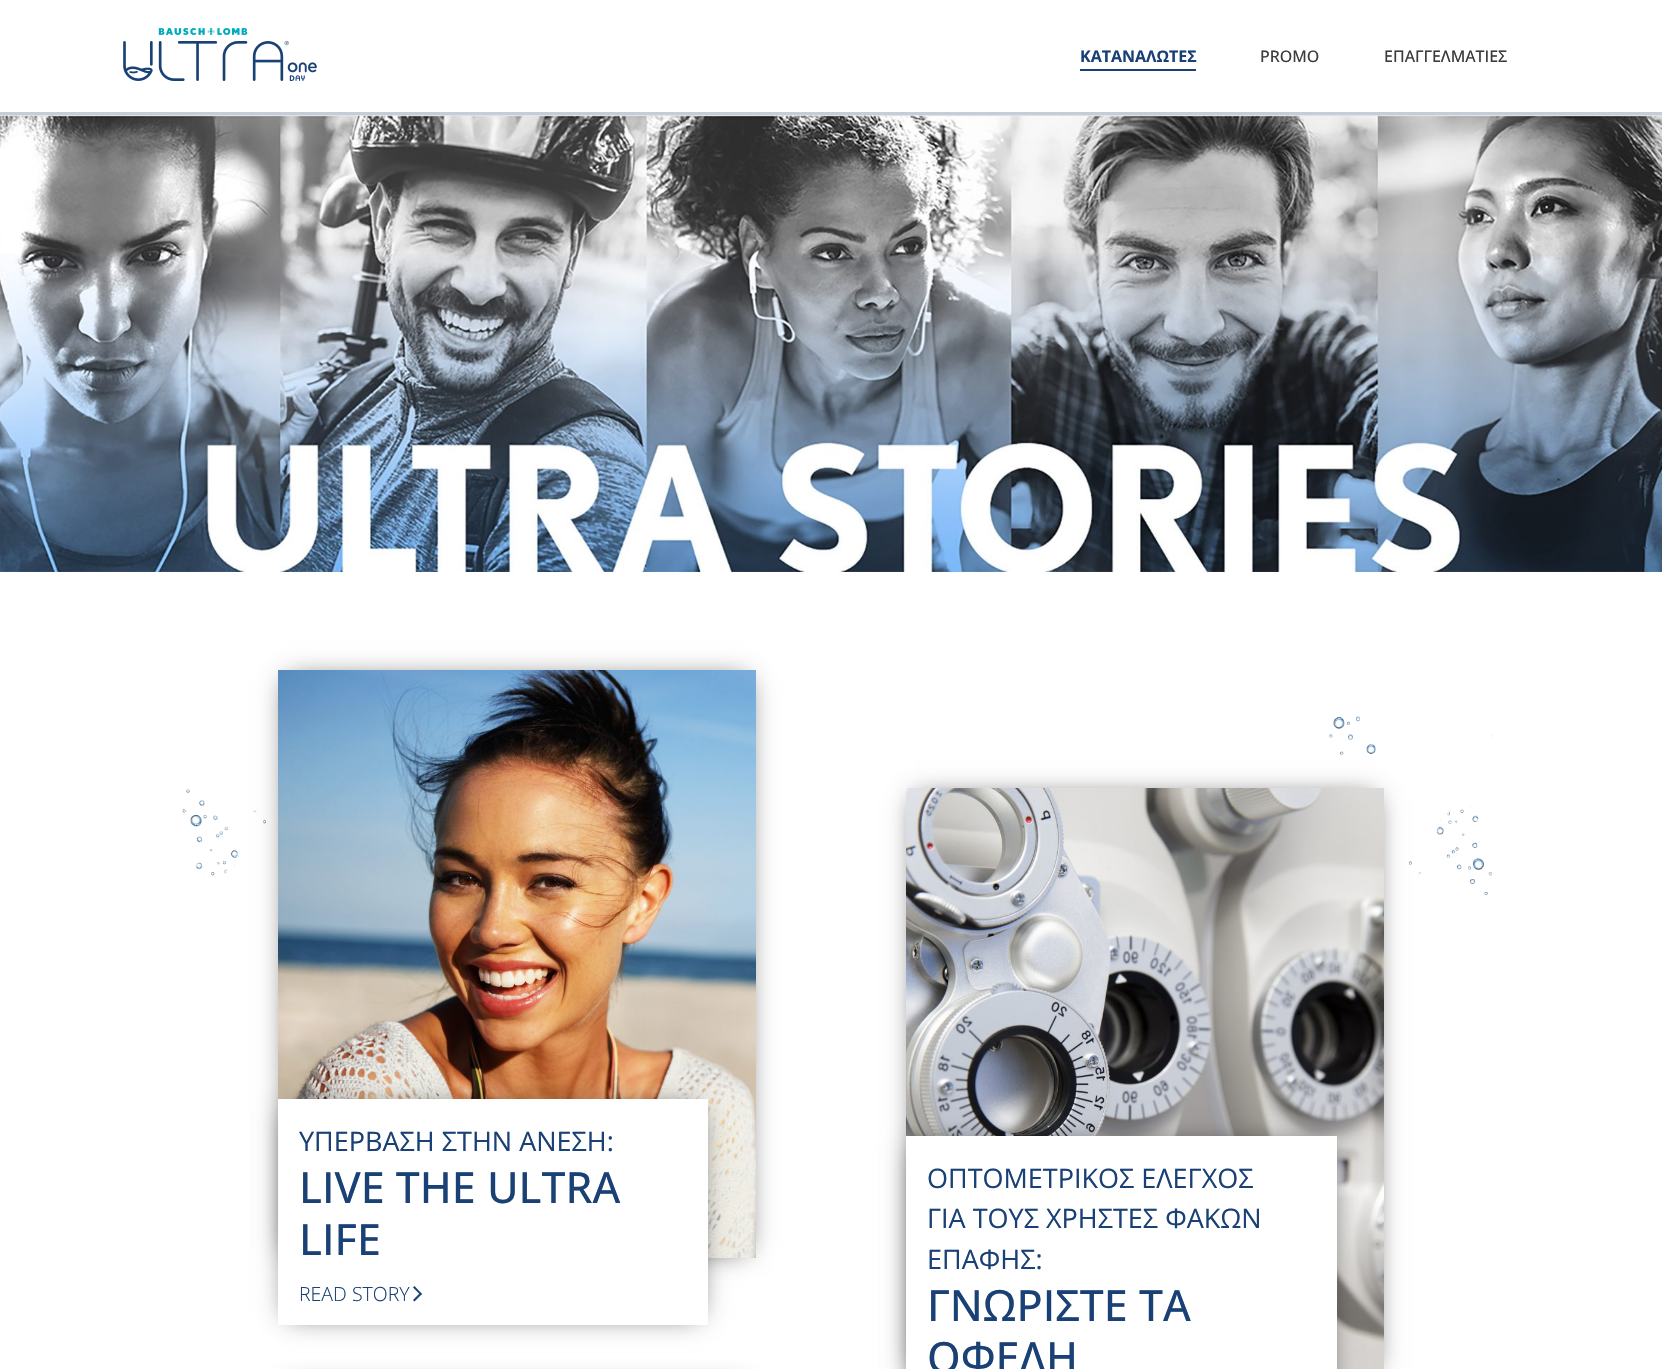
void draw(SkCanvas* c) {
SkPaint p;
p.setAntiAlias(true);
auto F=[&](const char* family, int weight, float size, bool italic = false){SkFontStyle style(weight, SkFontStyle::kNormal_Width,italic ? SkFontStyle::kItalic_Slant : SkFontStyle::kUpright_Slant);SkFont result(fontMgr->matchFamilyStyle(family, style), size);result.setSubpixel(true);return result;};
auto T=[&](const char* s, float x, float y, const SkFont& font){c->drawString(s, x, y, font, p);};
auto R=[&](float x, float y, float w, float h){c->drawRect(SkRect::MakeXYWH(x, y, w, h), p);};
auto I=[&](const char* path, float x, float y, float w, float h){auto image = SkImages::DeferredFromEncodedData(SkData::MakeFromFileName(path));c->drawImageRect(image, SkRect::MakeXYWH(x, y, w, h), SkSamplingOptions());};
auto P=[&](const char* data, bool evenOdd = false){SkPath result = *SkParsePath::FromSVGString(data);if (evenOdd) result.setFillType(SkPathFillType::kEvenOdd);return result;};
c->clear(0xffffffff);
p.setColor(0xffc7cdd6);
R(0,112,1662,3);
I("1.png",123,28,194,53);
auto f1 = F("Open Sans",700,16);
p.setColor(0xff1a4175);
T("ΚΑΤΑΝΑΛΩΤΕΣ",1080,62,f1);
R(1080,69,116,2);
auto f2 = F("Open Sans",500,16);
p.setColor(0xff3c3c3c);
T("PROMO",1260,62,f2);
T("ΕΠΑΓΓΕΛΜΑΤΙΕΣ",1384,62,f2);
I("2.png",0,115,1662,457);
p.setColor(0xb3000000);
p.setMaskFilter(SkMaskFilter::MakeBlur(kNormal_SkBlurStyle, 13));
c->drawRect(SkRect::MakeXYWH(288,680,458,570),p);
p.setMaskFilter(nullptr);
I("3.png",182,789,84,90);
I("4.png",278,670,478,588);
p.setMaskFilter(SkMaskFilter::MakeBlur(kNormal_SkBlurStyle, 13));
c->drawRect(SkRect::MakeXYWH(288,1109,410,206),p);
p.setMaskFilter(nullptr);
p.setColor(0xffffffff);
R(278,1099,430,226);
auto f3 = F("Open Sans",400,27);
p.setColor(0xff1a4175);
T("YΠΕΡΒΑΣΗ ΣΤΗΝ ΑΝΕΣΗ:",299,1151,f3);
auto f4 = F("Open Sans",500,43);
T("LIVE THE ULTRA",299,1203,f4);
T("LIFE",299,1255,f4);
auto f5 = F("Open Sans",300,19.5);
T("READ STORY",299,1301,f5);
c->drawPath(P("M413 1287.5l1.5-1.5l7.5 8l-1.5 1z"),p);
c->drawPath(P("M413 1300l7.5-7.5l1.5 1.5l-7.5 7.5z"),p);
p.setColor(0xb3000000);
p.setMaskFilter(SkMaskFilter::MakeBlur(kNormal_SkBlurStyle, 13));
c->drawRect(SkRect::MakeXYWH(916,798,458,570),p);
p.setMaskFilter(nullptr);
I("6.png",1329,716,164,180);
I("5.png",906,788,478,581);
p.setMaskFilter(SkMaskFilter::MakeBlur(kNormal_SkBlurStyle, 13));
c->drawRect(SkRect::MakeXYWH(916,1146,411,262),p);
p.setMaskFilter(nullptr);
p.setColor(0xffffffff);
R(906,1136,431,233);
p.setColor(0xff1a4175);
T("ΟΠΤΟΜΕΤΡΙΚΟΣ ΕΛΕΓΧΟΣ",927,1188,f3);
T("ΓΙΑ ΤΟΥΣ ΧΡΗΣΤΕΣ ΦΑΚΩΝ",927,1228,f3);
T("ΕΠΑΦΗΣ:",927,1269,f3);
T("ΓΝΩΡΙΣΤΕ ΤΑ",927,1321,f4);
T("ΟΦΕΛΗ",927,1373,f4);
p.setColor(0xb3000000);
p.setMaskFilter(SkMaskFilter::MakeBlur(kNormal_SkBlurStyle, 13));
c->drawRect(SkRect::MakeXYWH(288,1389,458,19),p);
p.setMaskFilter(nullptr);
}
